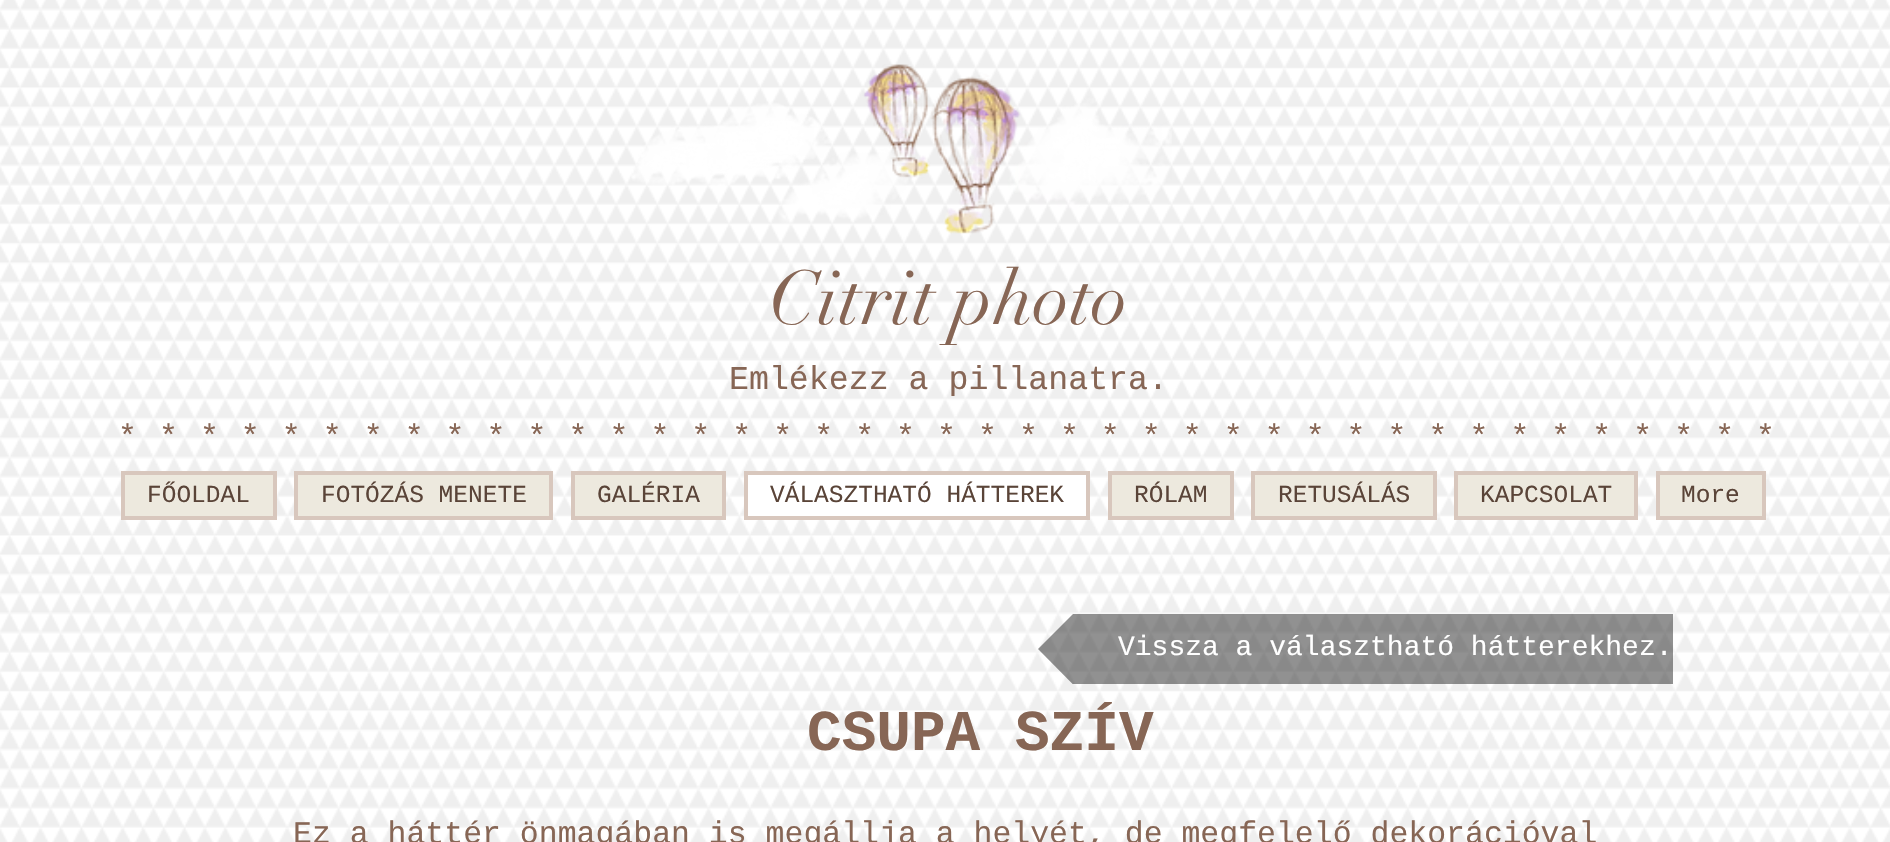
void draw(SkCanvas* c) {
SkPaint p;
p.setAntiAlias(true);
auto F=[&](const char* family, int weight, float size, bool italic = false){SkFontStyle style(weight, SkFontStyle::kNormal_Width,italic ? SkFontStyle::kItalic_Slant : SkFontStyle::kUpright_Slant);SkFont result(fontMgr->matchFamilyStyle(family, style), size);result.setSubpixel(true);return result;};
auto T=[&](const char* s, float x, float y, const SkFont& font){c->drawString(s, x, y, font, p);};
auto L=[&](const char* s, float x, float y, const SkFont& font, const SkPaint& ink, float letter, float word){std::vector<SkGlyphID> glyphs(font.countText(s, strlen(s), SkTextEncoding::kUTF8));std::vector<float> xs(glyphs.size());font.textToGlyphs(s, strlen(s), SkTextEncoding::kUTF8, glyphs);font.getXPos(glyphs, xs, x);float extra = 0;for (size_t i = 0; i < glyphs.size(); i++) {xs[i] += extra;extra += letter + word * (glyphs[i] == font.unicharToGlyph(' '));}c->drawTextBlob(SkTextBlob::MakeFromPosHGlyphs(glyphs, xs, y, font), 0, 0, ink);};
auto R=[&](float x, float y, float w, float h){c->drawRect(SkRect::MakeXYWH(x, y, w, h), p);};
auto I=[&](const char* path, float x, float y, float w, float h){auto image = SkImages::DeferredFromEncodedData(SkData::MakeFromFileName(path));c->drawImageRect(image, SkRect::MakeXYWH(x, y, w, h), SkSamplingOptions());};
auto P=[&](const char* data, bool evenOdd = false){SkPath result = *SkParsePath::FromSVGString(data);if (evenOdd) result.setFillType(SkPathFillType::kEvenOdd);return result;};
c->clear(0xffffffff);
I("1.png",0,0,1890,842);
I("2.png",631,64,541,170);
auto f1 = F("didot",400,75.25);
p.setColor(0xff876655);
T("Citrit photo",769,324,f1);
auto f2 = F("Liberation Mono",400,33.25);
T("Emlékezz a pillanatra.",729,389,f2);
auto f3 = F("Liberation Mono",400,31.5);
L("*****************************************",118,446,f3,p,22.05,0);
p.setColor(0xffede9de);
c->drawRect(SkRect::MakeXYWH(123,473,152,45),p);
p.setStroke(true);
p.setStrokeWidth(4);
p.setColor(0xffd8c7bd);
c->drawRect(SkRect::MakeXYWH(123,473,152,45),p);
auto f4 = F("Liberation Mono",400,24.5);
p.setStroke(false);
p.setColor(0xff5a4438);
T("FŐOLDAL",147,502,f4);
p.setColor(0xffede9de);
c->drawRect(SkRect::MakeXYWH(296,473,255,45),p);
p.setStroke(true);
p.setColor(0xffd8c7bd);
c->drawRect(SkRect::MakeXYWH(296,473,255,45),p);
p.setStroke(false);
p.setColor(0xff5a4438);
T("FOTÓZÁS MENETE",321,502,f4);
p.setColor(0xffede9de);
c->drawRect(SkRect::MakeXYWH(573,473,151,45),p);
p.setStroke(true);
p.setColor(0xffd8c7bd);
c->drawRect(SkRect::MakeXYWH(573,473,151,45),p);
p.setStroke(false);
p.setColor(0xff5a4438);
T("GALÉRIA",597,502,f4);
p.setColor(0xffffffff);
c->drawRect(SkRect::MakeXYWH(746,473,342,45),p);
p.setStroke(true);
p.setColor(0xffd8c7bd);
c->drawRect(SkRect::MakeXYWH(746,473,342,45),p);
p.setStroke(false);
p.setColor(0xff5a4438);
T("VÁLASZTHATÓ HÁTTEREK",770,502,f4);
p.setColor(0xffede9de);
c->drawRect(SkRect::MakeXYWH(1110,473,122,45),p);
p.setStroke(true);
p.setColor(0xffd8c7bd);
c->drawRect(SkRect::MakeXYWH(1110,473,122,45),p);
p.setStroke(false);
p.setColor(0xff5a4438);
T("RÓLAM",1134,502,f4);
p.setColor(0xffede9de);
c->drawRect(SkRect::MakeXYWH(1253,473,182,45),p);
p.setStroke(true);
p.setColor(0xffd8c7bd);
c->drawRect(SkRect::MakeXYWH(1253,473,182,45),p);
p.setStroke(false);
p.setColor(0xff5a4438);
T("RETUSÁLÁS",1278,502,f4);
p.setColor(0xffede9de);
c->drawRect(SkRect::MakeXYWH(1456,473,180,45),p);
p.setStroke(true);
p.setColor(0xffd8c7bd);
c->drawRect(SkRect::MakeXYWH(1456,473,180,45),p);
p.setStroke(false);
p.setColor(0xff5a4438);
T("KAPCSOLAT",1480,502,f4);
p.setColor(0xffede9de);
c->drawRect(SkRect::MakeXYWH(1658,473,106,45),p);
p.setStroke(true);
p.setColor(0xffd8c7bd);
c->drawRect(SkRect::MakeXYWH(1658,473,106,45),p);
p.setStroke(false);
p.setColor(0xff5a4438);
T("More",1681,502,f4);
c->save();
c->clipRect(SkRect::MakeXYWH(1038,614,635,70));
p.setColor(0x80232323);
c->drawPath(P("M1125 649h-87l87-87z"),p);
c->restore();
R(1125,614,548,70);
c->save();
c->clipRect(SkRect::MakeXYWH(1038,614,635,70));
c->drawPath(P("M1038 649h87v88z"),p);
c->restore();
auto f5 = F("Liberation Mono",400,28);
p.setColor(0xffffffff);
T("Vissza a választható hátterekhez.",1118,655,f5);
auto f6 = F("Liberation Mono",700,57.75);
p.setColor(0xff876655);
T("CSUPA SZÍV",807,750,f6);
T("Ez a háttér önmagában is megállja a helyét, de megfelelő dekorációval",293,843,f3);
}
